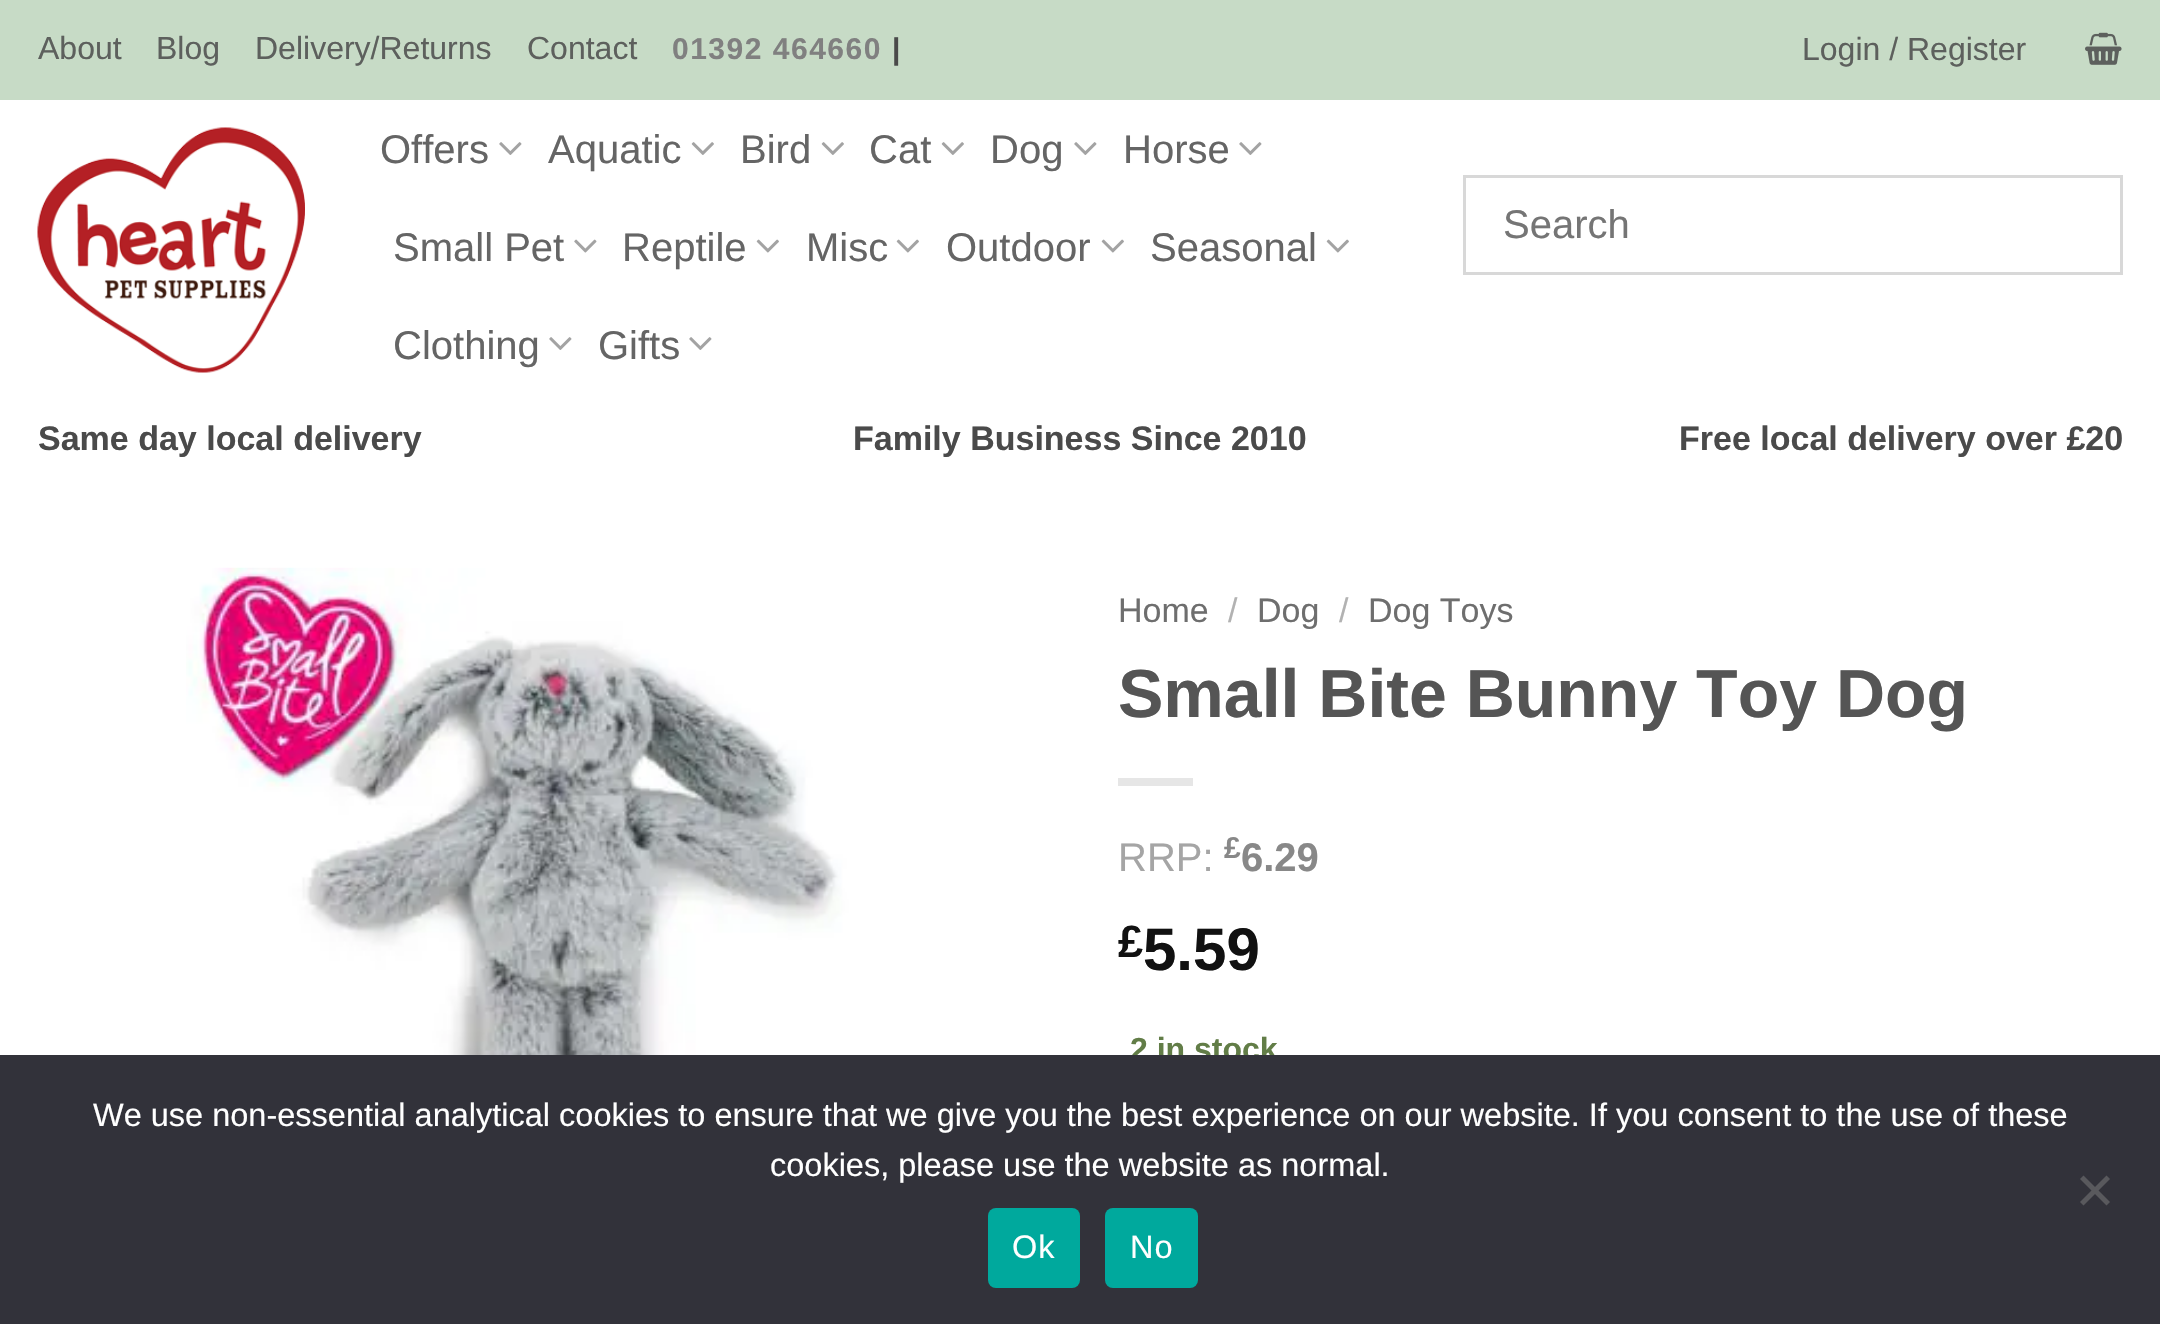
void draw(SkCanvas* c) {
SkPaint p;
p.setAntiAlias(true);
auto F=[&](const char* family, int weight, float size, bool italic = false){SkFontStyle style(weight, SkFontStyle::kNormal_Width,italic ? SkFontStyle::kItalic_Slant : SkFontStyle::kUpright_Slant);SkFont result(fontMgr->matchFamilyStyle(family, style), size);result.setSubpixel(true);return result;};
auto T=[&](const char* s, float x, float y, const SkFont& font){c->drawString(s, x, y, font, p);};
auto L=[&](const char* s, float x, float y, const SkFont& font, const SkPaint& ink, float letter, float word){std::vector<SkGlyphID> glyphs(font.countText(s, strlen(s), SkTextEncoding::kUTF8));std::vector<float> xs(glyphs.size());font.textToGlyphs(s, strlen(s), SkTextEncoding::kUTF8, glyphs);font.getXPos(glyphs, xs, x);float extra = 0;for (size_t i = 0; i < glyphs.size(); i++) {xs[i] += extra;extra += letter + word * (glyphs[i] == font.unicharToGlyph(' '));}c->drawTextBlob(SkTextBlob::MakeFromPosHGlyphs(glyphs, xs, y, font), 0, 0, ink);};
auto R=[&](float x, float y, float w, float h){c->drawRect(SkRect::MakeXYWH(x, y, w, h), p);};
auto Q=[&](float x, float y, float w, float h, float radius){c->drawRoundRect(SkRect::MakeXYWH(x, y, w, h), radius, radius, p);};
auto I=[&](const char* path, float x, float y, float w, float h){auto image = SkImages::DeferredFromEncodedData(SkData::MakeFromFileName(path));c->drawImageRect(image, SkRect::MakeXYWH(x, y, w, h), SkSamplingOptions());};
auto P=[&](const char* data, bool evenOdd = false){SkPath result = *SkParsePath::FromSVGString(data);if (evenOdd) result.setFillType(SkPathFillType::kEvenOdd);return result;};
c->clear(0xffffffff);
p.setColor(0xffc7dbc6);
R(0,0,2160,100);
auto f1 = F("Liberation Sans",400,32);
p.setColor(0xff5d605d);
T("About",38,59,f1);
T("Blog",156,59,f1);
T("Delivery/Returns",255,59,f1);
T("Contact",527,59,f1);
auto f2 = F("Liberation Sans",700,30);
p.setColor(0xff808080);
L("01392 464660",672,59,f2,p,1.5,0);
p.setColor(0xff4a4a4a);
L("|",892,59,f2,p,1.5,0);
p.setColor(0xff5d605d);
T("Login / Register",1802,60,f1);
I("1.png",2085,32,37,33);
I("2.png",37,127,268,246);
auto f3 = F("Liberation Sans",400,40);
p.setColor(0xff656565);
T("Offers",380,163,f3);
I("3.png",499,142,23,13);
T("Aquatic",548,163,f3);
I("4.png",691,142,23,13);
T("Bird",740,163,f3);
I("4.png",821,142,23,13);
T("Cat",869,163,f3);
I("4.png",941,142,23,13);
T("Dog",990,163,f3);
I("3.png",1074,142,23,13);
T("Horse",1123,163,f3);
I("3.png",1239,142,23,13);
T("Small Pet",393,261,f3);
I("5.png",574,239,23,14);
T("Reptile",622,261,f3);
I("6.png",756,239,23,14);
T("Misc",806,261,f3);
I("6.png",896,239,23,14);
T("Outdoor",946,261,f3);
I("6.png",1101,239,23,14);
T("Seasonal",1150,261,f3);
I("6.png",1326,239,23,14);
T("Clothing",393,359,f3);
I("3.png",549,337,23,13);
T("Gifts",598,359,f3);
I("3.png",689,337,23,13);
p.setStroke(true);
p.setStrokeWidth(3);
p.setColor(0xffd8d8d8);
c->drawRect(SkRect::MakeXYWH(1464.5,176.5,657,97),p);
p.setStroke(false);
p.setColor(0xff757575);
T("Search",1503,238,f3);
auto f4 = F("Liberation Sans",700,34);
p.setColor(0xff4a4a4a);
T("Same day local delivery",38,450,f4);
T("Family Business Since 2010",853,450,f4);
T("Free local delivery over £20",1679,450,f4);
I("7.png",186,567,694,488);
auto f5 = F("Liberation Sans",400,34);
p.setColor(0xff6e6e6e);
T("Home",1118,622,f5);
p.setColor(0xffb2b2b2);
T("/",1228,622,f5);
p.setColor(0xff6e6e6e);
T("Dog",1257,622,f5);
p.setColor(0xffb2b2b2);
T("/",1339,622,f5);
p.setColor(0xff6e6e6e);
T("Dog Toys",1368,622,f5);
auto f6 = F("Liberation Sans",700,68);
p.setColor(0xff555555);
T("Small Bite Bunny Toy Dog",1118,717,f6);
p.setColor(0xffe6e6e6);
R(1118,778,75,8);
p.setColor(0xffa5a5a5);
T("RRP:",1118,871,f3);
p.setColor(0xff888888);
T("£",1224,858,f2);
auto f7 = F("Liberation Sans",700,40);
T("6.29",1241,871,f7);
auto f8 = F("Liberation Sans",700,45);
p.setColor(0xff111111);
T("£",1118,957,f8);
auto f9 = F("Liberation Sans",700,60);
T("5.59",1143,970,f9);
auto f10 = F("Liberation Sans",700,32);
p.setColor(0xff627d47);
T("2 in stock",1130,1060,f10);
p.setColor(0xff32323a);
R(0,1055,2160,269);
auto f11 = F("Liberation Sans",400,32.5);
p.setColor(0xffffffff);
T("We use non-essential analytical cookies to ensure that we give you the best experience on our website. If you consent to the use of these",93,1126,f11);
T("cookies, please use the website as normal.",770,1176,f11);
p.setColor(0xff59595d);
c->drawPath(P("M2106.5 1175.5l3.5 3.5l-26.5 26.5l-3.5-3.5z"),p);
c->drawPath(P("M2080 1179l3.5-3.5l26.5 26.5l-3.5 3.5z"),p);
p.setColor(0xff00a99d);
Q(988,1208,92,80,8);
p.setColor(0xffffffff);
L("Ok",1012,1258,f11,p,1,0);
p.setColor(0xff00a99d);
Q(1105,1208,93,80,8);
p.setColor(0xffffffff);
L("No",1130,1258,f11,p,1,0);
}
